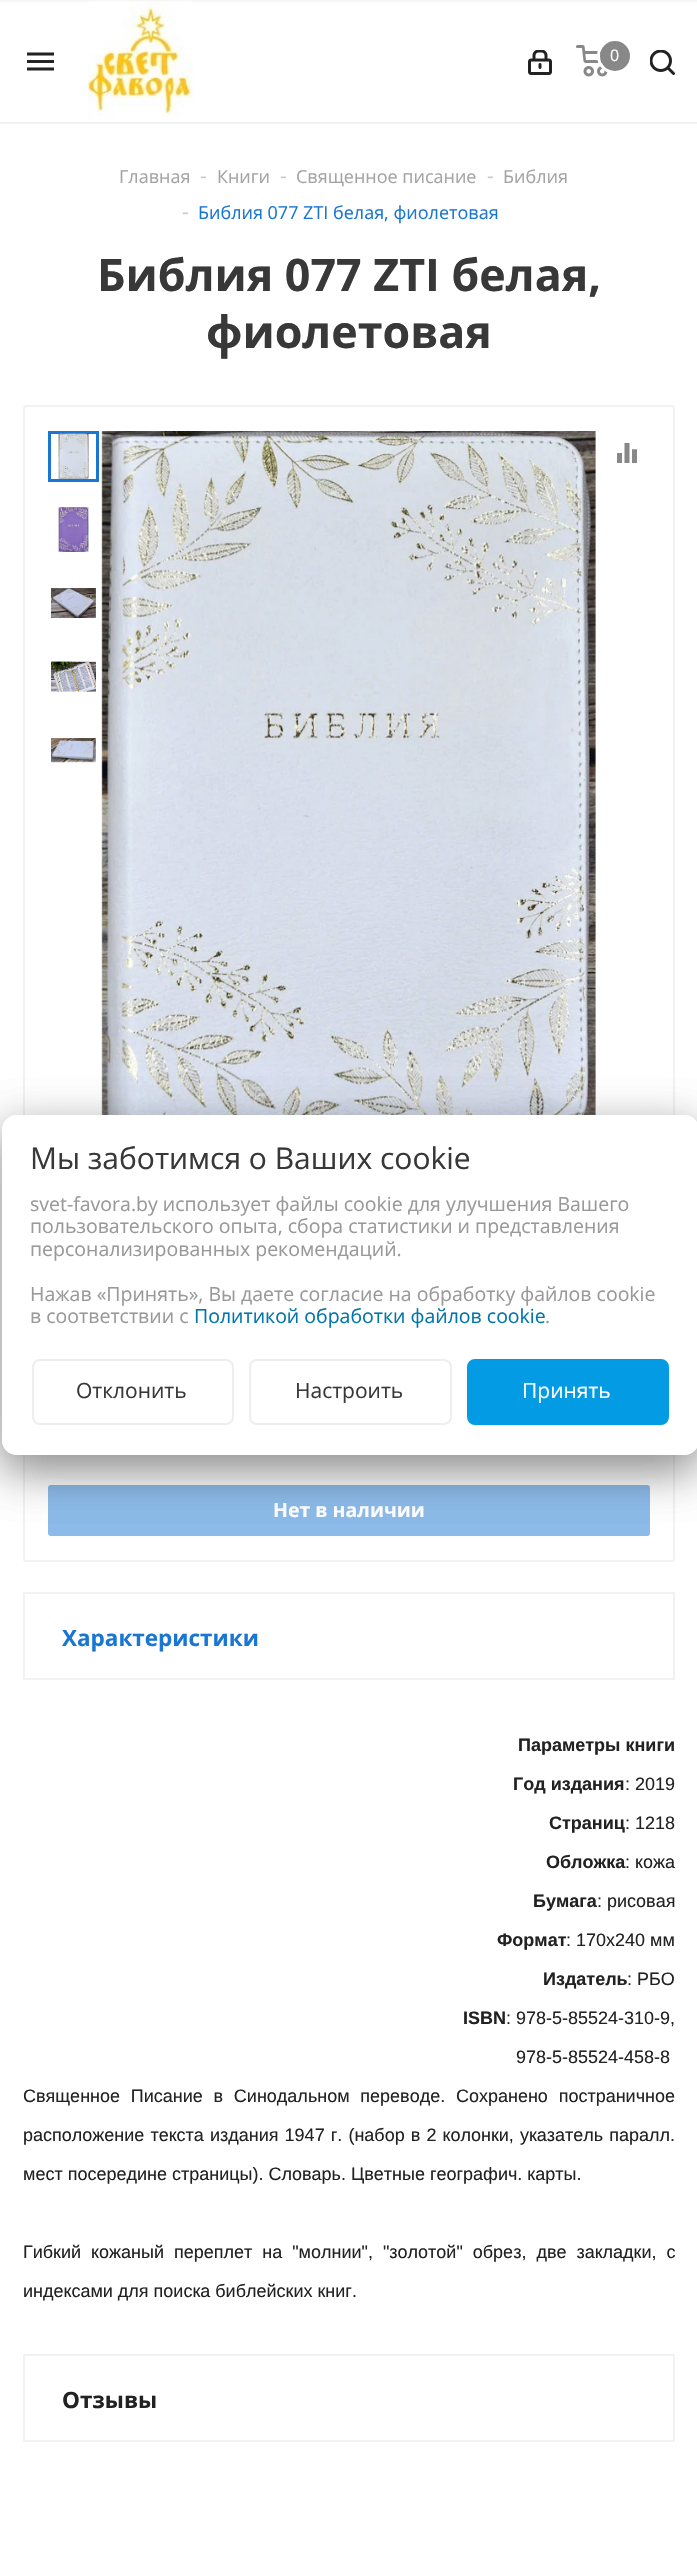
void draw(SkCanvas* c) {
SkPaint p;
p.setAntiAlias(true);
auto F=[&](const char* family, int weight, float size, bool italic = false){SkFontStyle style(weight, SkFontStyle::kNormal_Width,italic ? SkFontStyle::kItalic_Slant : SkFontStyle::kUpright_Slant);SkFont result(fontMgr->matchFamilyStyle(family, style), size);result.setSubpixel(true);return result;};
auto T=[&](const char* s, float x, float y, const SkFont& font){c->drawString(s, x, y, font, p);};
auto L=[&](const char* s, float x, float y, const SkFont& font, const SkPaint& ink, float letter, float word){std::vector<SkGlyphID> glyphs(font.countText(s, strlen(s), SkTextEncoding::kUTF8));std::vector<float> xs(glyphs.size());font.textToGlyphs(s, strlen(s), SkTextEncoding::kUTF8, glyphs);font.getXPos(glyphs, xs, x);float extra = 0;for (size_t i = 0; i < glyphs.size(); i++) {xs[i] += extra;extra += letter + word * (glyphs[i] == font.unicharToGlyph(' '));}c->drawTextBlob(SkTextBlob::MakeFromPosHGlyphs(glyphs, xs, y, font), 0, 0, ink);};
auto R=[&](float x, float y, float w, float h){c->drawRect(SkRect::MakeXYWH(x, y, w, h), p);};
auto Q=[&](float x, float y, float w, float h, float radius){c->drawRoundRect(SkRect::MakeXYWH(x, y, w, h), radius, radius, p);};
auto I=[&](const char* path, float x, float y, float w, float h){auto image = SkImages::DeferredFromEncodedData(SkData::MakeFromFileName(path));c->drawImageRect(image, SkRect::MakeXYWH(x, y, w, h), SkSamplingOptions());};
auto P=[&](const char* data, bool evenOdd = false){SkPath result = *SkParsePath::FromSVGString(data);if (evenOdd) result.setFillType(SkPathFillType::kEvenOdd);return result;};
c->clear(0xffffffff);
p.setColor(0xfff6f6f6);
R(0,0,697,2);
p.setColor(0xfff2f2f2);
R(0,122,697,2);
I("1.png",27,52,27,19);
I("2.png",88,1,106,119);
I("3.png",528,50,24,25);
I("4.png",576,45,32,32);
p.setStroke(true);
p.setStrokeWidth(3);
p.setColor(0xffffffff);
c->drawCircle(615,56,16.5,p);
p.setStroke(false);
p.setColor(0xff888888);
c->drawCircle(615,56,15,p);
auto f1 = F("Open Sans",400,16);
p.setColor(0xffffffff);
T("0",610,61,f1);
I("5.png",650,50,25,25);
auto f2 = F("Open Sans",400,18);
p.setColor(0xffa4a4a4);
T("Главная",119,183,f2);
auto f3 = F("Open Sans",400,21);
p.setColor(0xffcccccc);
T("-",200,183,f3);
p.setColor(0xffa4a4a4);
T("Книги",217,183,f2);
p.setColor(0xffcccccc);
T("-",280,183,f3);
p.setColor(0xffa4a4a4);
T("Священное писание",296,183,f2);
p.setColor(0xffcccccc);
T("-",487,183,f3);
p.setColor(0xffa4a4a4);
T("Библия",503,183,f2);
p.setColor(0xffcccccc);
T("-",182,219,f3);
p.setColor(0xff1976d2);
T("Библия 077 ZTI белая, фиолетовая",198,219,f2);
auto f4 = F("Open Sans",700,44.75);
p.setColor(0xff383838);
T("Библия 077 ZTI белая,",97,291,f4);
T("фиолетовая",206,348,f4);
p.setStroke(true);
p.setStrokeWidth(2);
p.setColor(0xfff2f2f2);
c->drawRoundRect(SkRect::MakeXYWH(24,406,650,1155),2,2,p);
p.setStrokeWidth(3);
p.setColor(0xff1976d2);
c->drawRect(SkRect::MakeXYWH(49.5,432.5,48,48),p);
I("6.png",58,433,31,46);
I("7.png",58,507,31,45);
I("8.png",51,588,45,30);
I("9.png",51,661,45,31);
I("10.png",51,738,45,25);
I("11.png",101,431,495,684);
I("12.png",617,443,20,20);
p.setStroke(false);
p.setColor(0xff8cbbe9);
Q(48,1485,602,51,3);
auto f5 = F("Open Sans",700,19.5);
p.setColor(0xffffffff);
T("Нет в наличии",273,1517,f5);
p.setStroke(true);
p.setStrokeWidth(2);
p.setColor(0xfff2f2f2);
c->drawRect(SkRect::MakeXYWH(24,1593,650,86),p);
auto f6 = F("Open Sans",700,22.5);
p.setStroke(false);
p.setColor(0xff1976d2);
T("Характеристики",62,1646,f6);
auto f7 = F("Liberation Sans",700,18);
p.setColor(0xff222222);
T("Параметры книги",518,1751,f7);
T("Год издания",513,1790,f7);
auto f8 = F("Liberation Sans",400,18);
T(": 2019",625,1790,f8);
T("Страниц",549,1829,f7);
T(": 1218",625,1829,f8);
T("Обложка",546,1868,f7);
T(": кожа",625,1868,f8);
T("Бумага",533,1907,f7);
T(": рисовая",597,1907,f8);
T("Формат",497,1946,f7);
T(": 170х240 мм",566,1946,f8);
T("Издатель",543,1985,f7);
T(": РБО",627,1985,f8);
T("ISBN",463,2024,f7);
T(": 978-5-85524-310-9,",506,2024,f8);
T("978-5-85524-458-8",516,2063,f8);
L("Священное Писание в Синодальном переводе. Сохранено постраничное",23,2102,f8,p,0,5.75);
L("расположение текста издания 1947 г. (набор в 2 колонки, указатель паралл.",23,2141,f8,p,0,1.1);
T("мест посередине страницы). Словарь. Цветные географич. карты.",23,2180,f8);
L("Гибкий кожаный переплет на \"молнии\", \"золотой\" обрез, две закладки, с",23,2258,f8,p,0,5);
T("индексами для поиска библейских книг.",23,2297,f8);
p.setStroke(true);
p.setColor(0xfff2f2f2);
c->drawRect(SkRect::MakeXYWH(24,2355,650,86),p);
p.setStroke(false);
p.setColor(0xff222222);
T("Отзывы",62,2408,f6);
c->save();
c->clipPath(P("M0 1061h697v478h-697zm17 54h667c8.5 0 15 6.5 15 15v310c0 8.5-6.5 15-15 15h-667c-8.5 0-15-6.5-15-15v-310c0-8.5 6.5-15 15-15z",true),true);
p.setColor(0x42000000);
p.setMaskFilter(SkMaskFilter::MakeBlur(kNormal_SkBlurStyle, 22.5));
c->drawRoundRect(SkRect::MakeXYWH(2,1130,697,340),15,15,p);
p.setMaskFilter(nullptr);
p.setMaskFilter(SkMaskFilter::MakeBlur(kNormal_SkBlurStyle, 22.5));
c->drawRoundRect(SkRect::MakeXYWH(2,1130,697,340),15,15,p);
p.setMaskFilter(nullptr);
c->restore();
p.setColor(0xffffffff);
Q(2,1115,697,340,15);
auto f9 = F("Open Sans",400,30);
p.setColor(0xff383838);
T("Мы заботимся о Ваших cookie",30,1169,f9);
auto f10 = F("Open Sans",400,19.5);
p.setColor(0xff999999);
T("svet-favora.by использует файлы cookie для улучшения Вашего",30,1211,f10);
T("пользовательского опыта, сбора статистики и представления",30,1233,f10);
T("персонализированных рекомендаций.",30,1256,f10);
T("Нажав «Принять», Вы даете согласие на обработку файлов cookie",30,1301,f10);
T("в соответствии с",30,1323,f10);
p.setColor(0xff0176ac);
T("Политикой обработки файлов cookie",194,1323,f10);
p.setColor(0xff999999);
T(".",545,1323,f10);
p.setStroke(true);
p.setColor(0xffeeeeee);
c->drawRoundRect(SkRect::MakeXYWH(33,1360,200,64),7,7,p);
p.setStroke(false);
p.setColor(0xff383838);
T("Отклонить",76,1398,f3);
p.setStroke(true);
p.setColor(0xffeeeeee);
c->drawRoundRect(SkRect::MakeXYWH(250,1360,201,64),7,7,p);
p.setStroke(false);
p.setColor(0xff383838);
T("Настроить",295,1398,f3);
p.setColor(0xff039ce4);
c->drawRoundRect(SkRect::MakeXYWH(468,1360,200,64),7,7,p);
p.setStroke(true);
c->drawRoundRect(SkRect::MakeXYWH(468,1360,200,64),7,7,p);
p.setStroke(false);
p.setColor(0xffffffff);
T("Принять",522,1398,f3);
}
